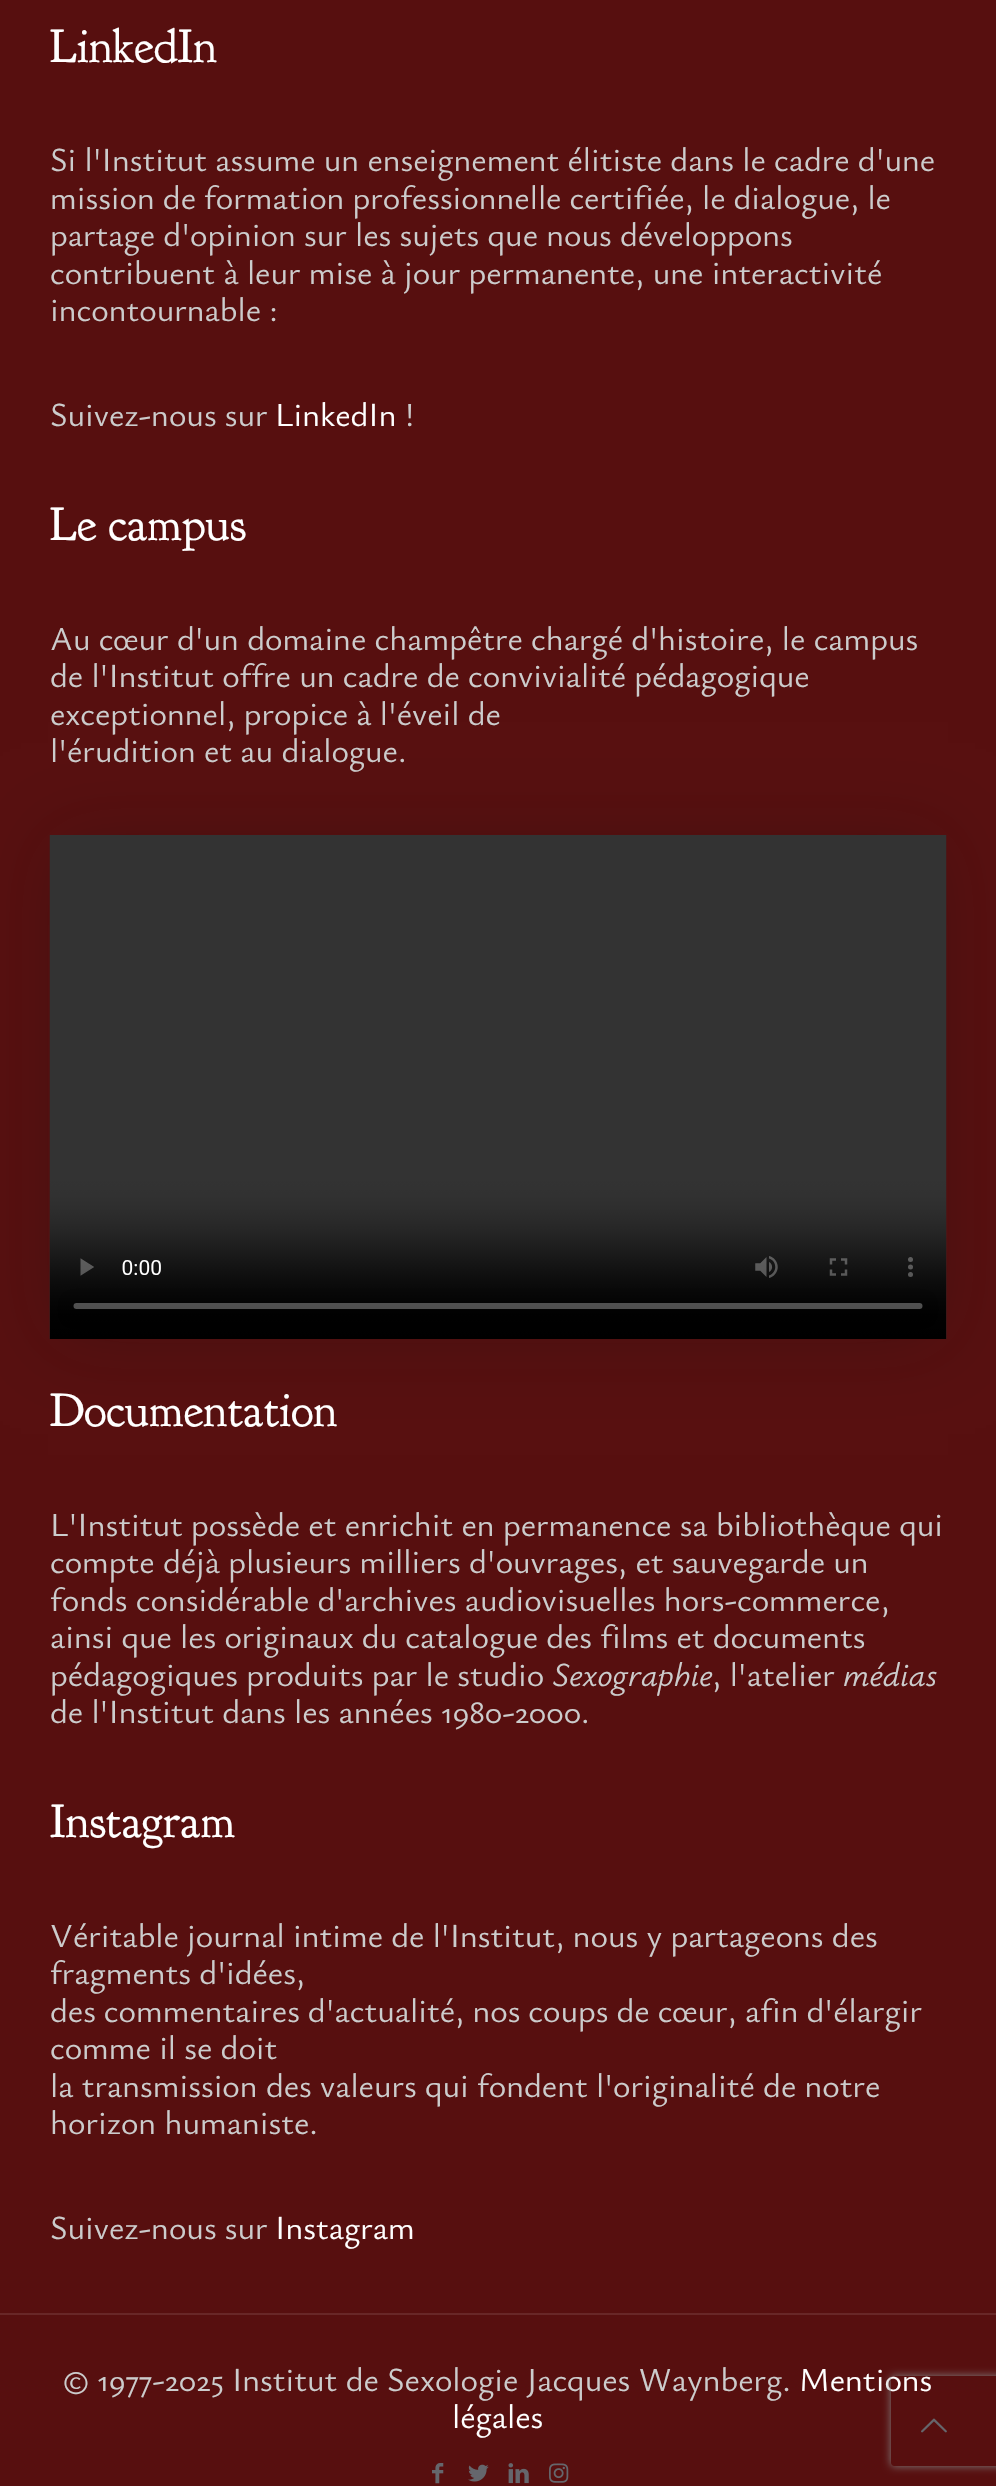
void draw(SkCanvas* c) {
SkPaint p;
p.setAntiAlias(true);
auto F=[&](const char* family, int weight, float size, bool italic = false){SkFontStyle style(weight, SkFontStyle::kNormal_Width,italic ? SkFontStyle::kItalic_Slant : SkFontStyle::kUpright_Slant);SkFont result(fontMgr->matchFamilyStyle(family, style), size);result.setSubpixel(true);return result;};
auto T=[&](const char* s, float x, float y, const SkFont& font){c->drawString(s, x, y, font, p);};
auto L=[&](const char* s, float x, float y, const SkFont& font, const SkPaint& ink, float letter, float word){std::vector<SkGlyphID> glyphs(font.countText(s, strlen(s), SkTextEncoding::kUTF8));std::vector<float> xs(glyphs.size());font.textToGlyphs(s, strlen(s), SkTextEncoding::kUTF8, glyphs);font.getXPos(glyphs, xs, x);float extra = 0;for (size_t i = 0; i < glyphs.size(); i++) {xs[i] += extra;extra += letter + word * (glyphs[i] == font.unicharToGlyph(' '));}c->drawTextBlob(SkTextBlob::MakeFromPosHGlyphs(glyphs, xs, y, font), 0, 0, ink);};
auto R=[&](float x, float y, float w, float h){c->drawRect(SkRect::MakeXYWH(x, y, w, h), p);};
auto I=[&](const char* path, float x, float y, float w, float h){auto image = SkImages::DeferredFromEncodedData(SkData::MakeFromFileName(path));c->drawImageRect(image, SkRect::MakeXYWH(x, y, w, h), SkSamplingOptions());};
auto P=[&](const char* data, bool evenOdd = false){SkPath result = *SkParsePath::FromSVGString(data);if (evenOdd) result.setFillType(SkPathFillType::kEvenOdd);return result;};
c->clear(0xff570f0f);
auto f1 = F("Goudy Bookletter 1911",400,48);
p.setColor(0xffffffff);
T("LinkedIn",50,62,f1);
auto f2 = F("Ysabeau",400,33.6);
p.setColor(0xffcccccc);
T("Si l'Institut assume un enseignement élitiste dans le cadre d'une",50,171,f2);
L("mission de formation professionnelle certifiée, le dialogue, le",50,209,f2,p,0,-.25);
T("partage d'opinion sur les sujets que nous développons",50,246,f2);
T("contribuent à leur mise à jour permanente, une interactivité",50,284,f2);
T("incontournable :",50,321,f2);
T("Suivez-nous sur",50,426,f2);
p.setColor(0xffffffff);
T("LinkedIn",275,426,f2);
p.setColor(0xffcccccc);
T("!",405,426,f2);
p.setColor(0xffffffff);
T("Le campus",50,540,f1);
p.setColor(0xffcccccc);
T("Au cœur d'un domaine champêtre chargé d'histoire, le campus",50,650,f2);
T("de l'Institut offre un cadre de convivialité pédagogique",50,687,f2);
T("exceptionnel, propice à l'éveil de",50,725,f2);
T("l'érudition et au dialogue.",50,762,f2);
p.setColor(0x33141414);
p.setMaskFilter(SkMaskFilter::MakeBlur(kNormal_SkBlurStyle, 37.5));
c->drawRect(SkRect::MakeXYWH(48,834,900,509),p);
p.setMaskFilter(nullptr);
I("1.png",49,835,898,504);
p.setColor(0xffffffff);
T("Documentation",50,1426,f1);
p.setColor(0xffcccccc);
T("L'Institut possède et enrichit en permanence sa bibliothèque qui",50,1536,f2);
T("compte déjà plusieurs milliers d'ouvrages, et sauvegarde un",50,1573,f2);
T("fonds considérable d'archives audiovisuelles hors-commerce,",50,1611,f2);
L("ainsi que les originaux du catalogue des films et documents",50,1648,f2,p,0,-.1);
T("pédagogiques produits par le studio",50,1686,f2);
auto f3 = F("Ysabeau",400,33.6,true);
T("Sexographie",552,1686,f3);
T(", l'atelier",712,1686,f2);
T("médias",843,1686,f3);
T("de l'Institut dans les années 1980-2000.",50,1723,f2);
p.setColor(0xffffffff);
T("Instagram",50,1837,f1);
p.setColor(0xffcccccc);
T("Véritable journal intime de l'Institut, nous y partageons des",50,1947,f2);
T("fragments d'idées,",50,1984,f2);
L("des commentaires d'actualité, nos coups de cœur, afin d'élargir",50,2022,f2,p,0,-.25);
T("comme il se doit",50,2059,f2);
T("la transmission des valeurs qui fondent l'originalité de notre",50,2097,f2);
T("horizon humaniste.",50,2134,f2);
T("Suivez-nous sur",50,2239,f2);
p.setColor(0xffffffff);
T("Instagram",275,2239,f2);
p.setColor(0xff682727);
R(0,2313,996,2);
p.setColor(0xffcccccc);
T("© 1977-2025 Institut de Sexologie Jacques Waynberg.",63,2391,f2);
p.setColor(0xffffffff);
T("Mentions",799,2391,f2);
T("légales",452,2428,f2);
I("2.png",432,2463,12,21);
I("3.png",468,2464,21,18);
I("4.png",508,2463,21,21);
I("5.png",549,2463,20,20);
c->save();
c->clipPath(P("M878 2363h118v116h-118zm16 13h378c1.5 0 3 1.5 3 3v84c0 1.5-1.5 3-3 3h-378c-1.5 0-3-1.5-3-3v-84c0-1.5 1.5-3 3-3z",true),true);
p.setColor(0xff808080);
p.setMaskFilter(SkMaskFilter::MakeBlur(kNormal_SkBlurStyle, 4));
c->drawRoundRect(SkRect::MakeXYWH(891,2376,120,90),3,3,p);
p.setMaskFilter(nullptr);
c->restore();
I("6.png",921,2418,26,15);
}
